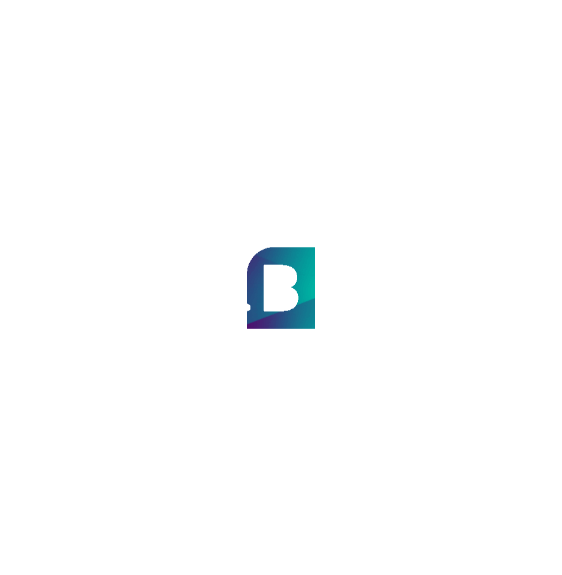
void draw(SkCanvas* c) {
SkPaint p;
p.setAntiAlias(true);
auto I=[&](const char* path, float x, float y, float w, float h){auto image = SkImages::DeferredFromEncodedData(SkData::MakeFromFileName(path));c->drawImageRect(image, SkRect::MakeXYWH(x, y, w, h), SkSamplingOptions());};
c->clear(0xffffffff);
I("1.png",247,247,68,82);
}
